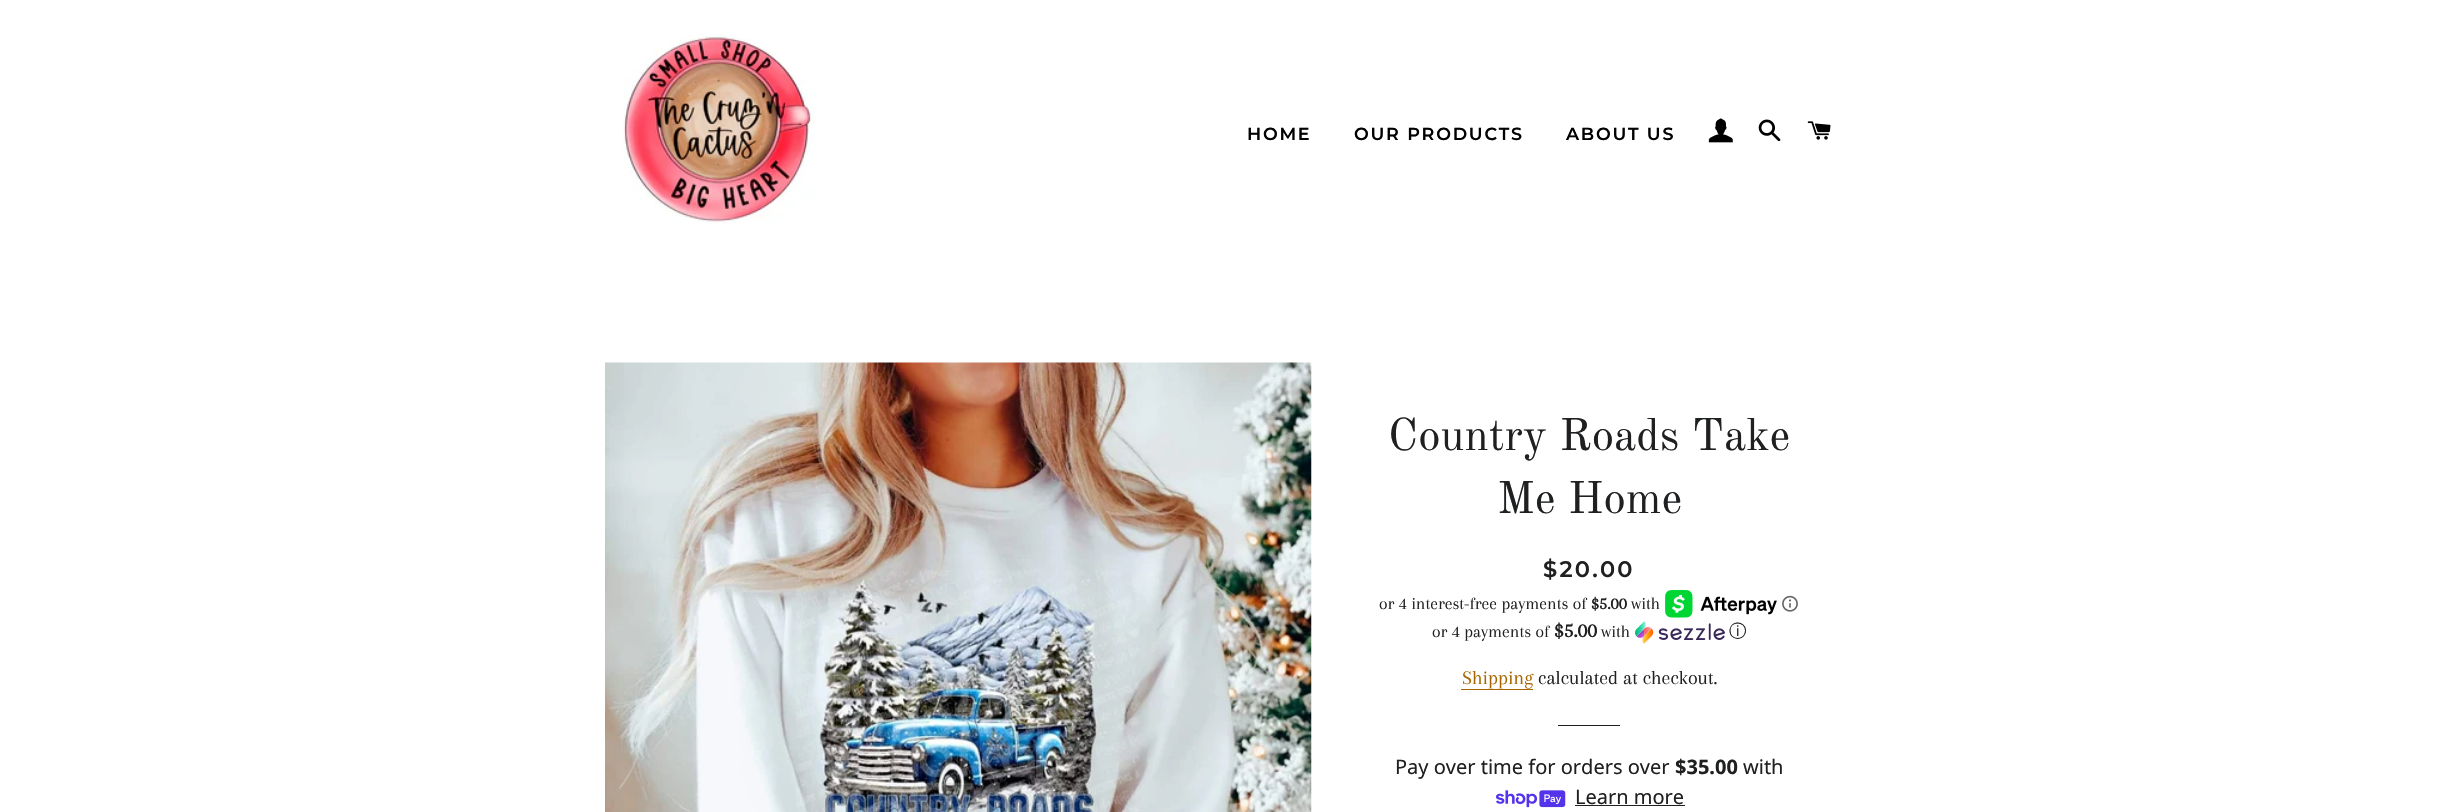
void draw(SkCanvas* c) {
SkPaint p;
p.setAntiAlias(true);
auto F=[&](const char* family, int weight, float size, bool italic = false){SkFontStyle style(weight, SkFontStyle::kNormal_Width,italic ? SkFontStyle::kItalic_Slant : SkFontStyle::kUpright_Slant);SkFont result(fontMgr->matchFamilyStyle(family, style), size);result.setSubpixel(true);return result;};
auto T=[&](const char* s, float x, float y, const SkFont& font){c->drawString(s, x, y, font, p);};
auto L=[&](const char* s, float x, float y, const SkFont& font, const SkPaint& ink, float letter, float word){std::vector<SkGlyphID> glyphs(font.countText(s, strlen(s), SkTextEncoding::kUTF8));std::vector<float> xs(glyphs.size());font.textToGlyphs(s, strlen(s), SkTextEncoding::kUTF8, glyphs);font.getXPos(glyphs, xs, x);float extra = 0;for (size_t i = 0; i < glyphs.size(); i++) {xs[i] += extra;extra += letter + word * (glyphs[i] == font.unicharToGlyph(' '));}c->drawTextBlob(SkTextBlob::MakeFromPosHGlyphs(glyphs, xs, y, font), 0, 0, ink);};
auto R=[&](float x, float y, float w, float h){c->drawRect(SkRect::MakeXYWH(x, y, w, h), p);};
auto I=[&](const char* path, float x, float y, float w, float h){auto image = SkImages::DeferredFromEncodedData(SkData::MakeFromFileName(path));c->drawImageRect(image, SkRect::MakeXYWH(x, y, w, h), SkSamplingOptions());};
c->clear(0xffffffff);
I("1.png",623,34,192,190);
auto f1 = F("Montserrat",600,17.5);
p.setColor(0xff000000);
L("HOME",1247,140,f1,p,1.75,0);
L("OUR PRODUCTS",1354,140,f1,p,1.75,0);
L("ABOUT US",1566,140,f1,p,1.75,0);
I("2.png",1708,118,25,25);
I("3.png",1758,119,23,23);
I("4.png",1807,121,24,19);
I("5.png",605,362,707,450);
auto f2 = F("Old Standard TT",400,45);
p.setColor(0xff1f2021);
T("Country Roads Take",1388,450,f2);
T("Me Home",1497,513,f2);
auto f3 = F("Montserrat",600,22.5);
L("$20.00",1543,577,f3,p,2.25,0);
auto f4 = F("Arapey",400,17.5);
T("or 4 interest-free payments of",1379,609,f4);
auto f5 = F("Arapey",700,17.5);
T("$5.00",1591,609,f5);
T("with",1631,609,f4);
I("6.png",1665,590,112,28);
I("7.png",1782,595,16,17);
T("or 4 payments of",1432,637,f4);
auto f6 = F("Arapey",700,21);
T("$5.00",1554,637,f6);
T("with",1601,637,f4);
I("8.png",1635,621,90,23);
auto f7 = F("WenQuanYi Zen Hei",500,17.5);
T("ⓘ",1729,637,f7);
auto f8 = F("Arapey",400,20);
p.setColor(0xffa56600);
T("Shipping",1462,684,f8);
R(1461,689,72,1);
p.setColor(0xff1f2021);
T("calculated at checkout.",1538,684,f8);
R(1558,725,62,1);
auto f9 = F("Noto Sans",400,20);
T("Pay over time for orders over",1395,774,f9);
auto f10 = F("Noto Sans",700,20);
T("$35.00",1675,774,f10);
T("with",1743,774,f9);
I("9.png",1496,790,70,18);
T("Learn more",1575,804,f9);
R(1575,805,110,1);
}
